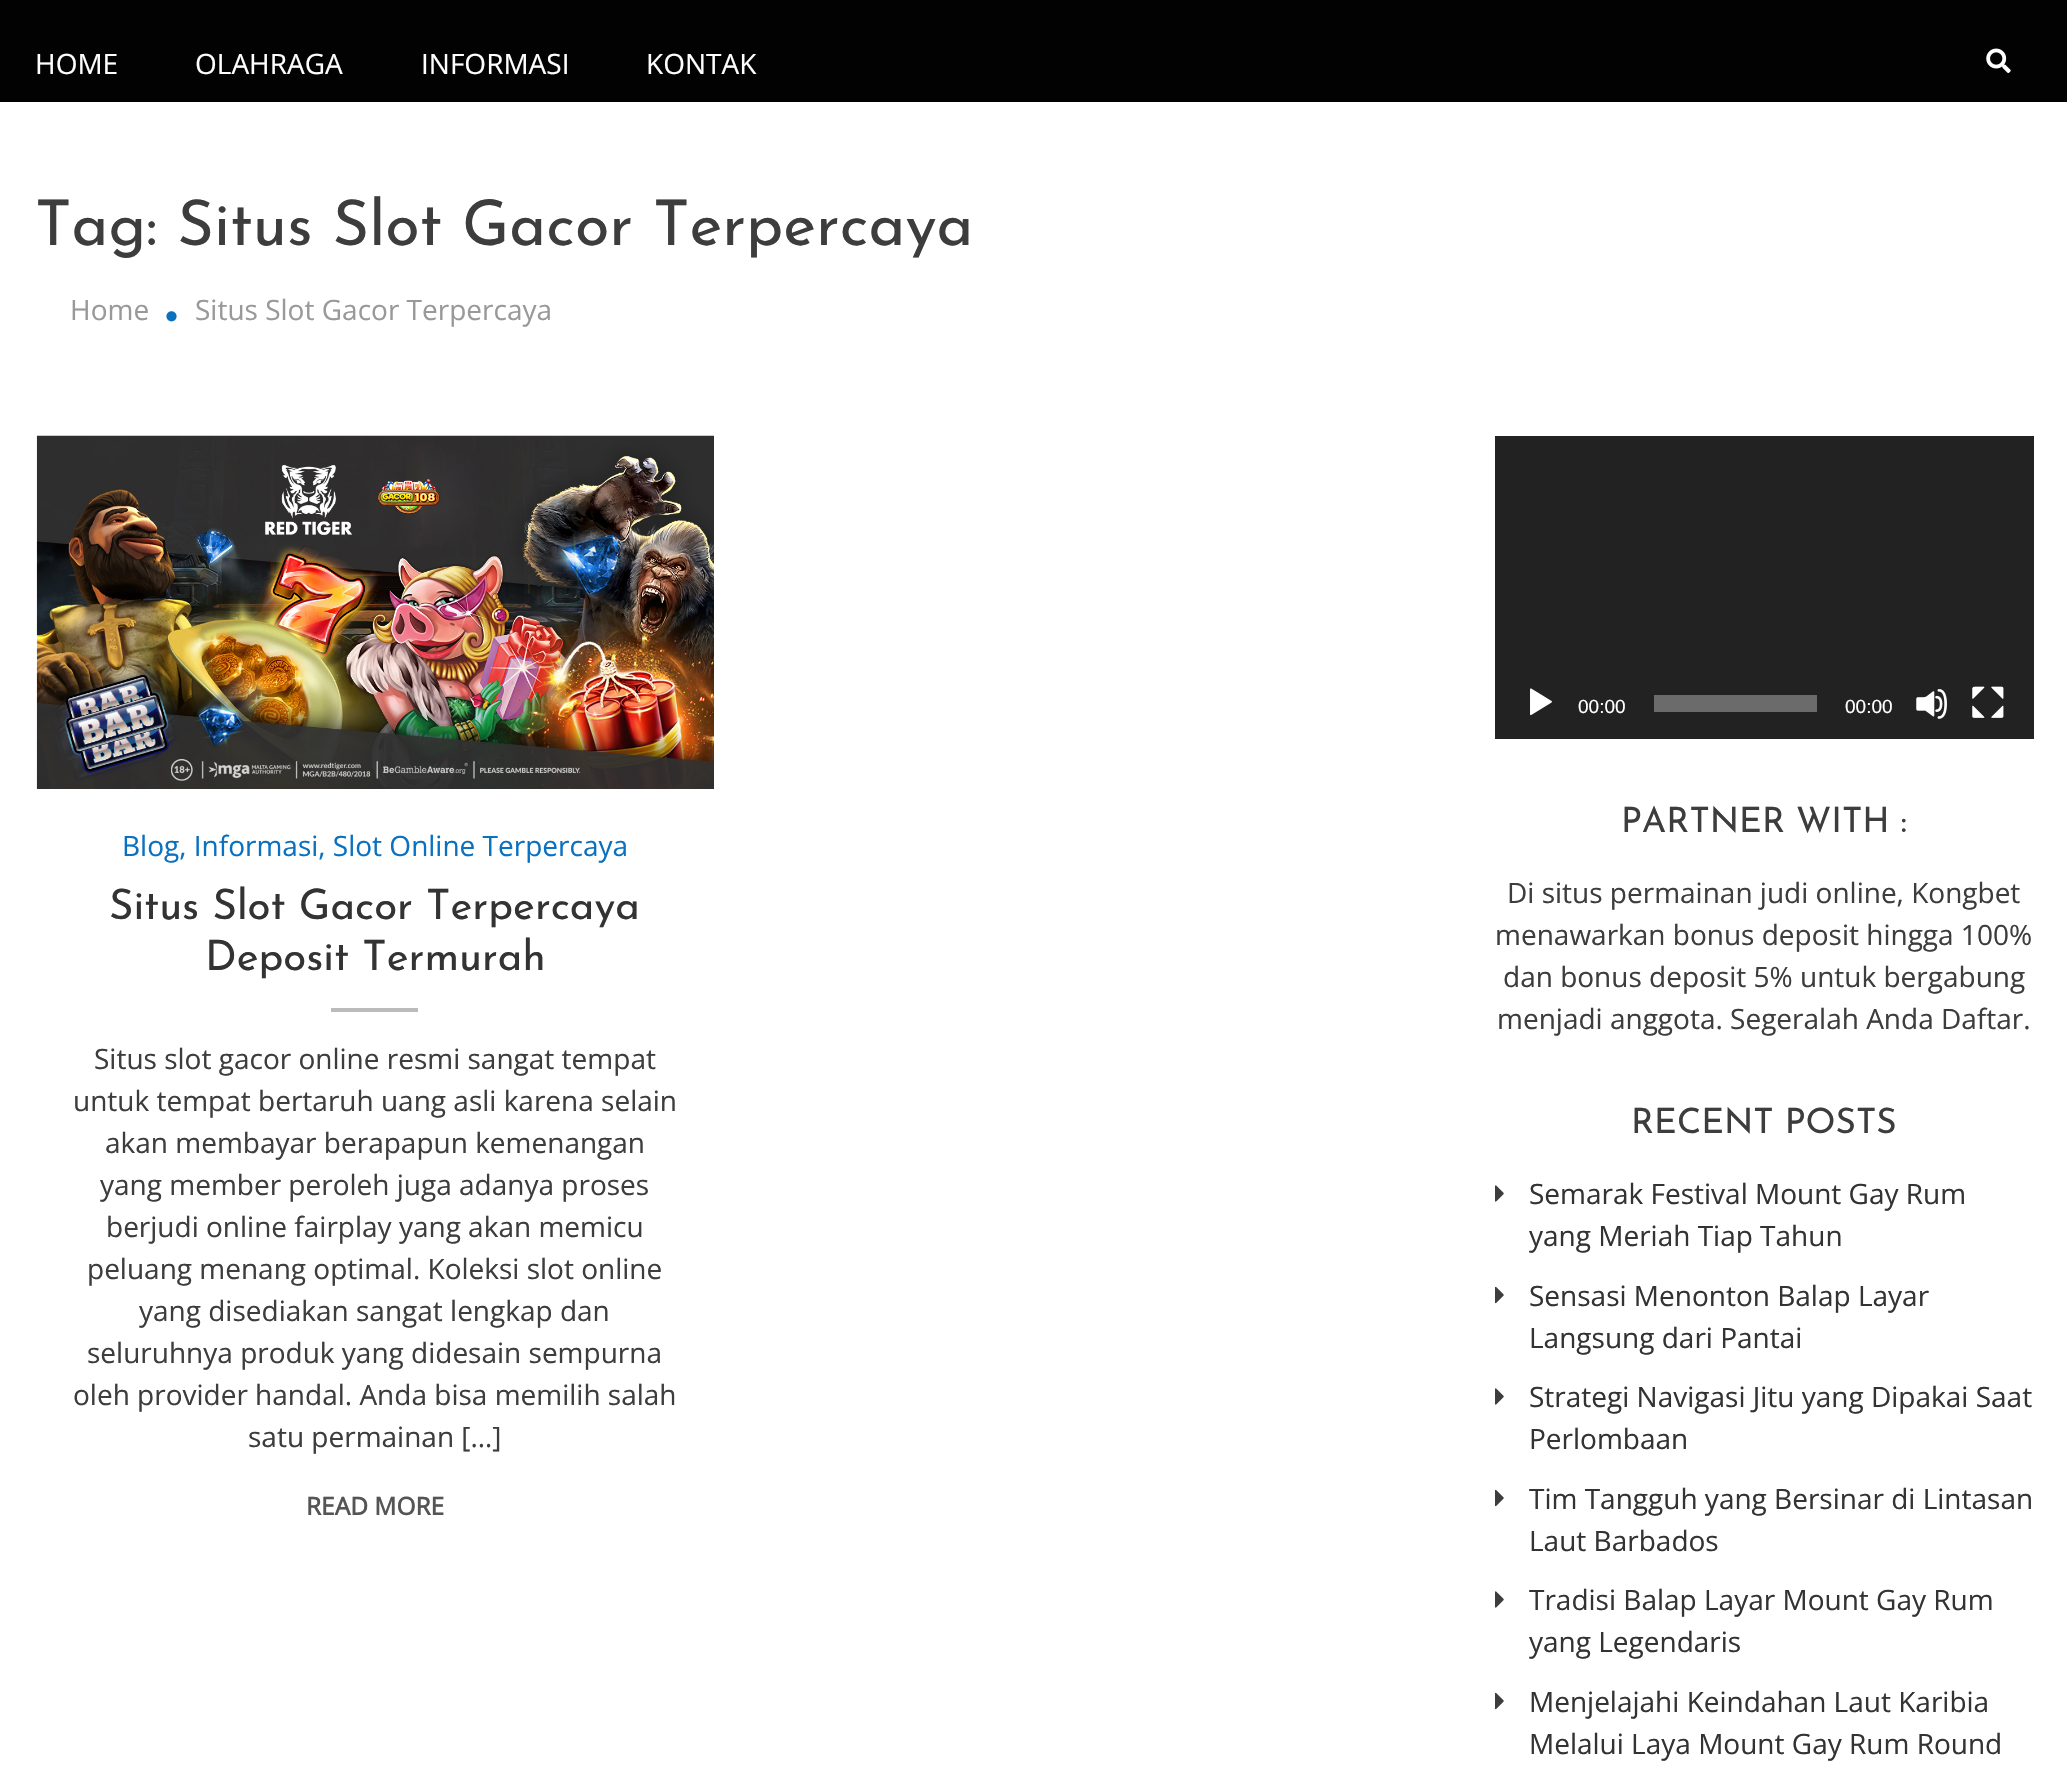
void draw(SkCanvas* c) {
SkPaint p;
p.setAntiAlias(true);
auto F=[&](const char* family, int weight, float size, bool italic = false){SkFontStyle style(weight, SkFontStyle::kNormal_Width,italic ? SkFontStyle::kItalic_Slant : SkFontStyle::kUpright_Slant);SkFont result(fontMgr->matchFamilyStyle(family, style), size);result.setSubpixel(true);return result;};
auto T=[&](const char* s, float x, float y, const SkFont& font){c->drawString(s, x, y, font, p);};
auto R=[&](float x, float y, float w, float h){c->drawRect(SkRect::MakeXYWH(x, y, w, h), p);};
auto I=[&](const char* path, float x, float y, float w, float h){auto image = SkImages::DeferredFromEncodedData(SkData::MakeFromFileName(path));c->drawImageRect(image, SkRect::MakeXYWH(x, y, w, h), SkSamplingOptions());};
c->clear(0xffffffff);
p.setColor(0xff020202);
R(0,0,2067,102);
auto f1 = F("Open Sans",400,28);
p.setColor(0xffffffff);
T("HOME",35,74,f1);
T("OLAHRAGA",195,74,f1);
T("INFORMASI",421,74,f1);
T("KONTAK",646,74,f1);
I("1.png",1986,48,25,25);
auto f2 = F("Josefin Sans",100,63);
p.setColor(0xff3d3d3d);
T("Tag: Situs Slot Gacor Terpercaya",35,245,f2);
p.setColor(0xff999999);
T("Home",70,320,f1);
I("2.png",166,311,11,11);
T("Situs Slot Gacor Terpercaya",195,320,f1);
I("3.png",36,435,678,354);
p.setColor(0xff0a71c0);
T("Blog, Informasi, Slot Online Terpercaya",122,856,f1);
auto f3 = F("Josefin Sans",100,42);
p.setColor(0xff333333);
T("Situs Slot Gacor Terpercaya",109,919,f3);
T("Deposit Termurah",205,970,f3);
p.setColor(0xffbbbbbb);
R(331,1008,87,4);
p.setColor(0xff3d3d3d);
T("Situs slot gacor online resmi sangat tempat",94,1069,f1);
T("untuk tempat bertaruh uang asli karena selain",73,1111,f1);
T("akan membayar berapapun kemenangan",105,1153,f1);
T("yang member peroleh juga adanya proses",100,1195,f1);
T("berjudi online fairplay yang akan memicu",106,1237,f1);
T("peluang menang optimal. Koleksi slot online",87,1279,f1);
T("yang disediakan sangat lengkap dan",139,1321,f1);
T("seluruhnya produk yang didesain sempurna",87,1363,f1);
T("oleh provider handal. Anda bisa memilih salah",73,1405,f1);
T("satu permainan […]",248,1447,f1);
auto f4 = F("Open Sans",700,24.5);
p.setColor(0xff555555);
T("READ MORE",306,1515,f4);
p.setColor(0xff222222);
R(1495,436,539,303);
I("4.png",1530,688,22,28);
auto f5 = F("Liberation Sans",400,19);
p.setColor(0xffffffff);
T("00:00",1578,713,f5);
p.setColor(0xff6b6b6b);
R(1654,695,163,17);
p.setColor(0xffffffff);
T("00:00",1845,713,f5);
I("5.png",1916,689,31,30);
I("6.png",1972,686,32,32);
auto f6 = F("Josefin Sans",100,35);
p.setColor(0xff3d3d3d);
T("PARTNER WITH :",1621,832,f6);
T("Di situs permainan judi online, Kongbet",1507,903,f1);
T("menawarkan bonus deposit hingga 100%",1495,945,f1);
T("dan bonus deposit 5% untuk bergabung",1503,987,f1);
T("menjadi anggota. Segeralah Anda Daftar.",1497,1029,f1);
T("RECENT POSTS",1631,1133,f6);
I("7.png",1495,1185,9,17);
p.setColor(0xff333333);
T("Semarak Festival Mount Gay Rum",1529,1204,f1);
T("yang Meriah Tiap Tahun",1529,1246,f1);
I("8.png",1495,1286,9,18);
T("Sensasi Menonton Balap Layar",1529,1306,f1);
T("Langsung dari Pantai",1529,1348,f1);
I("7.png",1495,1388,9,17);
T("Strategi Navigasi Jitu yang Dipakai Saat",1529,1407,f1);
T("Perlombaan",1529,1449,f1);
I("8.png",1495,1489,9,18);
T("Tim Tangguh yang Bersinar di Lintasan",1529,1509,f1);
T("Laut Barbados",1529,1551,f1);
I("7.png",1495,1591,9,17);
T("Tradisi Balap Layar Mount Gay Rum",1529,1610,f1);
T("yang Legendaris",1529,1652,f1);
I("8.png",1495,1692,9,18);
T("Menjelajahi Keindahan Laut Karibia",1529,1712,f1);
T("Melalui Laya Mount Gay Rum Round",1529,1754,f1);
}
